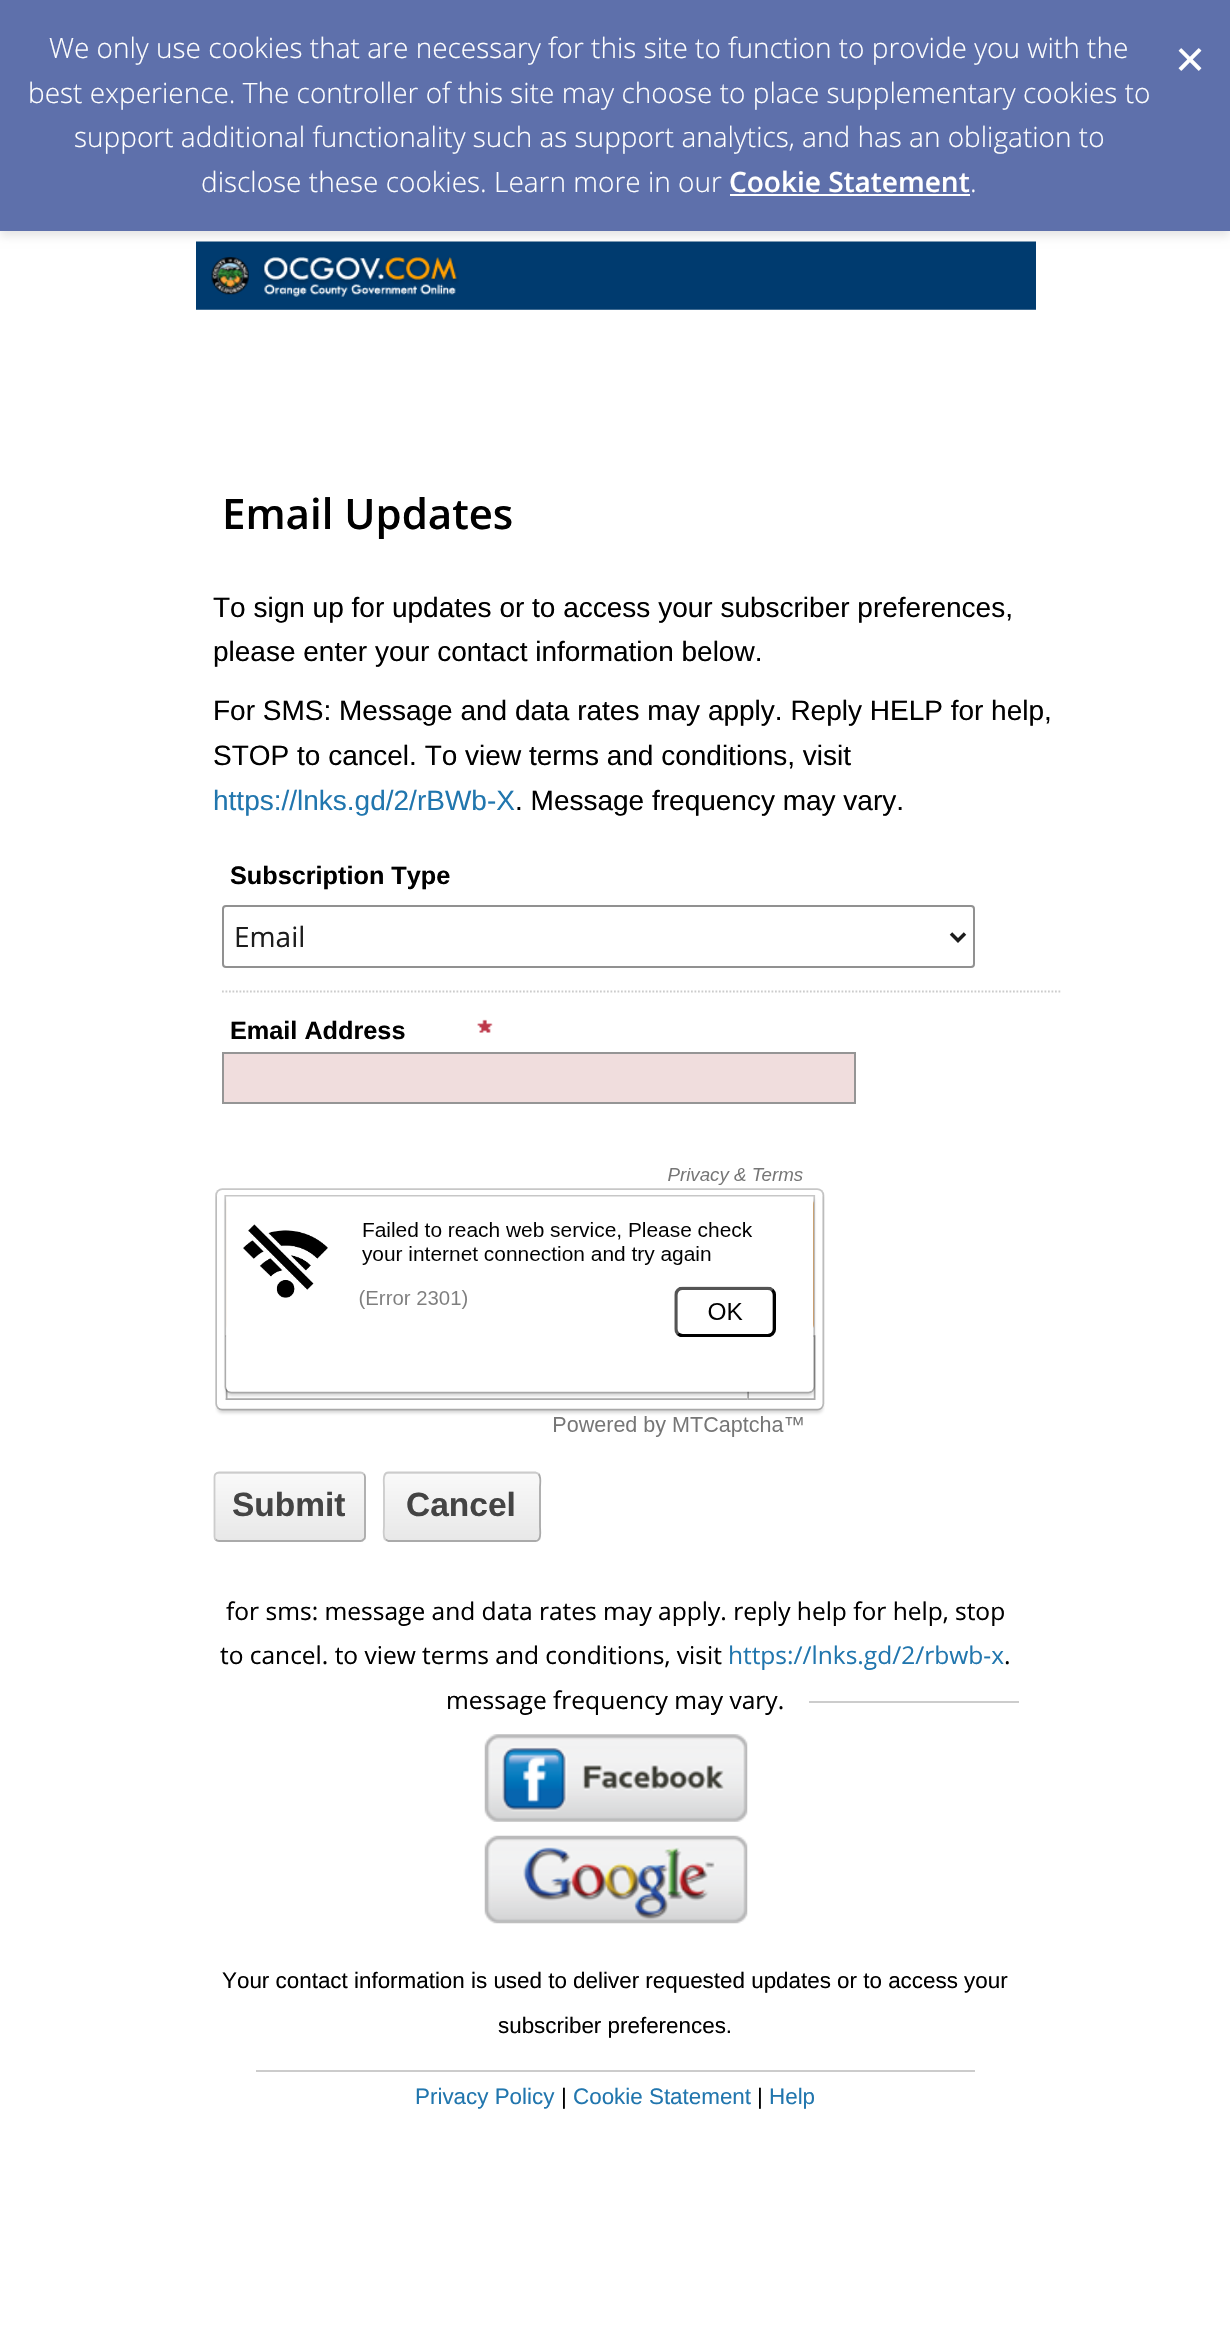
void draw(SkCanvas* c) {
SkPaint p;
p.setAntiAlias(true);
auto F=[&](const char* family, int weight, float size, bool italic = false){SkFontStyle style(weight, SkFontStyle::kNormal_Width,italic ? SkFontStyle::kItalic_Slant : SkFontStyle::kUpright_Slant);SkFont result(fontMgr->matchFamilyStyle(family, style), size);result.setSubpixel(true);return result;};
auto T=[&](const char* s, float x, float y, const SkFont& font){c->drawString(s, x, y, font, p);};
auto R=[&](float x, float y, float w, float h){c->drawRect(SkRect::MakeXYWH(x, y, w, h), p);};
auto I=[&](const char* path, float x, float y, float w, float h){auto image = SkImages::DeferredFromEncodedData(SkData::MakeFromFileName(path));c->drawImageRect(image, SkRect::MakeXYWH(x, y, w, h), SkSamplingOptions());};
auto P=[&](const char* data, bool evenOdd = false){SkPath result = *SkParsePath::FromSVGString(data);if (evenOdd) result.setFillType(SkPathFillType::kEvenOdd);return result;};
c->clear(0xffffffff);
I("2.png",196,241,840,69);
p.setColor(0x1a000000);
p.setMaskFilter(SkMaskFilter::MakeBlur(kNormal_SkBlurStyle, 4.5));
c->drawRect(SkRect::MakeXYWH(0,5,1230,231),p);
p.setMaskFilter(nullptr);
p.setColor(0xff5e70ab);
R(0,0,1230,231);
auto f1 = F("Open Sans",300,28);
p.setColor(0xffffffff);
T("We only use cookies that are necessary for this site to function to provide you with the",49,58,f1);
T("best experience. The controller of this site may choose to place supplementary cookies to",28,103,f1);
T("support additional functionality such as support analytics, and has an obligation to",74,147,f1);
T("disclose these cookies. Learn more in our",201,192,f1);
auto f2 = F("Open Sans",600,28);
T("Cookie Statement",729,192,f2);
R(730,194,240,2);
T(".",970,192,f1);
I("1.png",1178,48,24,23);
auto f3 = F("Open Sans",600,42);
p.setColor(0xff000000);
T("Email Updates",222,529,f3);
auto f4 = F("Liberation Sans",400,28);
T("To sign up for updates or to access your subscriber preferences,",213,617,f4);
T("please enter your contact information below.",213,661,f4);
T("For SMS: Message and data rates may apply. Reply HELP for help,",213,720,f4);
T("STOP to cancel. To view terms and conditions, visit",213,765,f4);
p.setColor(0xff2176ae);
T("https://lnks.gd/2/rBWb-X",213,810,f4);
p.setColor(0xff000000);
T(". Message frequency may vary.",515,810,f4);
auto f5 = F("Liberation Sans",700,25.25);
T("Subscription Type",230,884,f5);
p.setStroke(true);
p.setStrokeWidth(2);
p.setColor(0xff919191);
c->drawRoundRect(SkRect::MakeXYWH(223,906,751,61),3,3,p);
p.setStrokeWidth(3.5);
p.setColor(0xff1d1d1d);
c->drawPath(P("M951 933.5l7 7l7-7"),p);
auto f6 = F("Open Sans",400,28);
p.setStroke(false);
T("Email",234,947,f6);
p.setStroke(true);
p.setStrokeWidth(1.8);
p.setColor(0xffcccccc);
p.setPathEffect(SkDashPathEffect::Make({{1.75f,1.75f}}, 0));
c->drawPath(P("M222 991.5h840"),p);
p.setPathEffect(nullptr);
p.setStroke(false);
p.setColor(0xff000000);
T("Email Address",230,1039,f5);
I("3.png",477,1019,16,14);
p.setColor(0xfff0dddd);
c->drawRect(SkRect::MakeXYWH(223,1053,632,50),p);
p.setStroke(true);
p.setStrokeWidth(2);
p.setColor(0xff959595);
c->drawRect(SkRect::MakeXYWH(223,1053,632,50),p);
I("4.png",215,1168,610,269);
c->save();
c->clipPath(P("M219 1472h142c3 0 5 2 5 5v60c0 3-2 5-5 5h-142c-3 0-5-2-5-5v-60c0-3 2-5 5-5z"),true);
p.setStroke(false);
{
const SkColor colors[] = {0xfff9f9f9,0xffe8e8e8};
const float stops[] = {0,1};
const SkPoint ends[] = {{290,1407}, {290,1474}};
p.setShader(SkGradientShader::MakeLinear(ends, colors, stops, 2, SkTileMode::kClamp));
p.setAlpha(255);
}
R(214,1472,152,2);
{
const SkColor colors[] = {0xfff9f9f9,0xffe8e8e8};
const float stops[] = {0,1};
const SkPoint ends[] = {{290,1474}, {290,1540}};
p.setShader(SkGradientShader::MakeLinear(ends, colors, stops, 2, SkTileMode::kClamp));
p.setAlpha(255);
}
R(214,1474,152,66);
{
const SkColor colors[] = {0xfff9f9f9,0xffe8e8e8};
const float stops[] = {0,1};
const SkPoint ends[] = {{290,1540}, {290,1607}};
p.setShader(SkGradientShader::MakeLinear(ends, colors, stops, 2, SkTileMode::kClamp));
p.setAlpha(255);
}
R(214,1540,152,2);
c->restore();
p.setStroke(true);
p.setStrokeWidth(1.8);
p.setShader(nullptr);
p.setColor(0xffaaaaaa);
c->drawPath(P("M363.5 1474c1 .5 1.5 2 1.5 3v59.5c0 1-.5 2.5-1.5 3c-.5 1-2 1.5-3 1.5h-141.5c-1.5 0-2.5-.5-3.5-1.5"),p);
p.setColor(0xffcccccc);
c->drawPath(P("M215.5 1539.5c-.5-.5-1-2-1-3v-59.5c0-1 .5-2.5 1-3c1-1 2-1.5 3.5-1.5h141.5c1 0 2.5 .5 3 1.5"),p);
auto f7 = F("Liberation Sans",700,33.5);
p.setStroke(false);
p.setColor(0xff444444);
T("Submit",232,1516,f7);
c->save();
c->clipPath(P("M388 1472h148c3 0 5 2 5 5v60c0 3-2 5-5 5h-148c-3 0-5-2-5-5v-60c0-3 2-5 5-5z"),true);
{
const SkColor colors[] = {0xfff9f9f9,0xffe8e8e8};
const float stops[] = {0,1};
const SkPoint ends[] = {{462,1407}, {462,1474}};
p.setShader(SkGradientShader::MakeLinear(ends, colors, stops, 2, SkTileMode::kClamp));
p.setAlpha(255);
}
R(383,1472,158,2);
{
const SkColor colors[] = {0xfff9f9f9,0xffe8e8e8};
const float stops[] = {0,1};
const SkPoint ends[] = {{462,1474}, {462,1540}};
p.setShader(SkGradientShader::MakeLinear(ends, colors, stops, 2, SkTileMode::kClamp));
p.setAlpha(255);
}
R(383,1474,158,66);
{
const SkColor colors[] = {0xfff9f9f9,0xffe8e8e8};
const float stops[] = {0,1};
const SkPoint ends[] = {{462,1540}, {462,1607}};
p.setShader(SkGradientShader::MakeLinear(ends, colors, stops, 2, SkTileMode::kClamp));
p.setAlpha(255);
}
R(383,1540,158,2);
c->restore();
p.setStroke(true);
p.setShader(nullptr);
p.setColor(0xffaaaaaa);
c->drawPath(P("M538.5 1474c3 3 1.5 11.5 1.5 13v39.5c0 3 2 14.5-4.5 14.5h-147l-3-1.5"),p);
p.setColor(0xffcccccc);
c->drawPath(P("M385.5 1539.5c-3-3-1.5-11.5-1.5-13v-39.5c0-3-2-14.5 4.5-14.5h147l3 1.5"),p);
p.setStroke(false);
p.setColor(0xff444444);
T("Cancel",406,1516,f7);
auto f8 = F("Open Sans",400,24.5);
p.setColor(0xff000000);
T("for sms: message and data rates may apply. reply help for help, stop",226,1620,f8);
T("to cancel. to view terms and conditions, visit",220,1664,f8);
p.setColor(0xff2176ae);
T("https://lnks.gd/2/rbwb-x",728,1664,f8);
p.setColor(0xff000000);
T(".",1004,1664,f8);
T("message frequency may vary.",446,1709,f8);
p.setColor(0xffcccccc);
R(809,1701,210,2);
I("5.png",484,1734,264,88);
I("6.png",484,1835,264,89);
auto f9 = F("Liberation Sans",400,22.4);
p.setColor(0xff000000);
T("Your contact information is used to deliver requested updates or to access your",222,1988,f9);
T("subscriber preferences.",498,2033,f9);
p.setColor(0xffcccccc);
R(256,2070,719,2);
p.setColor(0xff2176ae);
T("Privacy Policy",415,2104,f9);
p.setColor(0xff000000);
T("|",561,2104,f9);
p.setColor(0xff2176ae);
T("Cookie Statement",573,2104,f9);
p.setColor(0xff000000);
T("|",757,2104,f9);
p.setColor(0xff2176ae);
T("Help",769,2104,f9);
}
